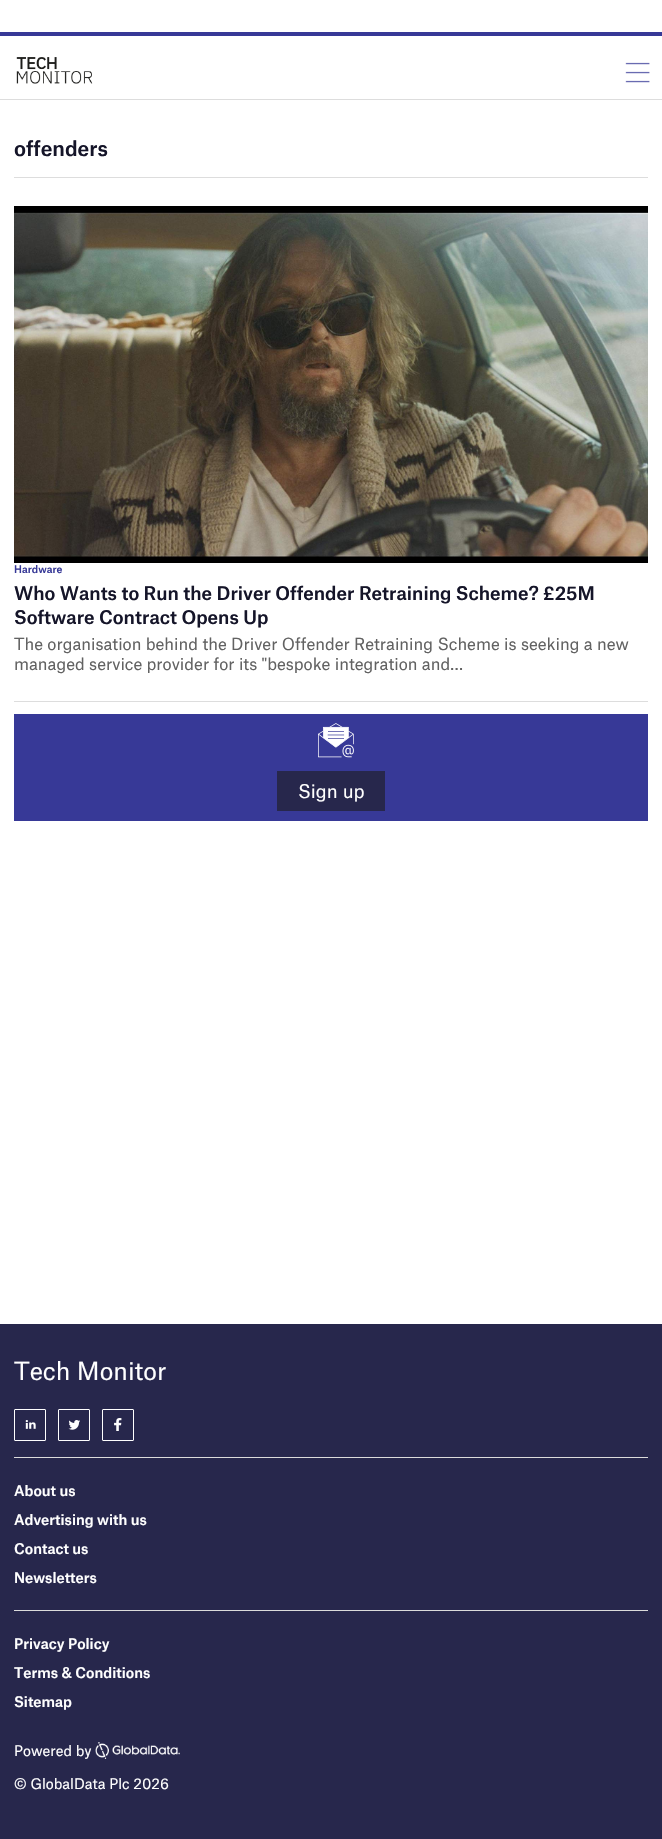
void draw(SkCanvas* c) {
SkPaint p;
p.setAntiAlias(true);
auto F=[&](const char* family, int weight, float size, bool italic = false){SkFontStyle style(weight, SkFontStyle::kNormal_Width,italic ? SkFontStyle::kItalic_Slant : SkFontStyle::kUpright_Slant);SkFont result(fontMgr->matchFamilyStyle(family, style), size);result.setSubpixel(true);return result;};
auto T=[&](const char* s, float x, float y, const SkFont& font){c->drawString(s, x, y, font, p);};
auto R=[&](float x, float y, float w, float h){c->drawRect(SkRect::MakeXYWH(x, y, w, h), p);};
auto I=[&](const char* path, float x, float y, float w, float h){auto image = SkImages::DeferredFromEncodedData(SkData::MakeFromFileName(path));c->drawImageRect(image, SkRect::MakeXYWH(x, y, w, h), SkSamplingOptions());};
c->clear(0xffffffff);
p.setColor(0xff373997);
R(0,32,662,4);
p.setColor(0xffdddddd);
R(0,99,662,1);
I("1.png",16,57,77,27);
I("2.png",625,62,25,21);
R(14,177,634,1);
auto f1 = F("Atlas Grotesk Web",500,20);
p.setColor(0xff151529);
T("offenders",14,156,f1);
p.setColor(0xffdddddd);
R(14,701,634,1);
I("3.png",14,206,634,357);
auto f2 = F("Atlas Grotesk Web",500,10);
p.setColor(0xff373997);
T("Hardware",14,573,f2);
auto f3 = F("Atlas Grotesk Web",500,18);
p.setColor(0xff151529);
T("Who Wants to Run the Driver Offender Retraining Scheme? £25M",14,600,f3);
T("Software Contract Opens Up",14,624,f3);
auto f4 = F("Atlas Grotesk Web",400,16);
p.setColor(0xff626262);
T("The organisation behind the Driver Offender Retraining Scheme is seeking a new",14,650,f4);
T("managed service provider for its \"bespoke integration and…",14,670,f4);
p.setColor(0xff373997);
R(14,714,634,107);
I("4.png",318,723,36,35);
p.setColor(0xff27274c);
R(277,771,108,40);
auto f5 = F("Atlas Grotesk Web",400,18);
p.setColor(0xffffffff);
T("Sign up",298,798,f5);
p.setColor(0xff27274c);
R(0,1324,662,515);
auto f6 = F("Atlas Grotesk Web",400,24);
p.setColor(0xffffffff);
T("Tech Monitor",14,1380,f6);
p.setStroke(true);
p.setStrokeWidth(1);
c->drawRoundRect(SkRect::MakeXYWH(14.5,1409.5,31,31),.5,.5,p);
I("5.png",25,1420,11,9);
c->drawRoundRect(SkRect::MakeXYWH(58.5,1409.5,31,31),.5,.5,p);
I("6.png",68,1420,12,10);
c->drawRoundRect(SkRect::MakeXYWH(102.5,1409.5,31,31),.5,.5,p);
I("7.png",114,1418,8,13);
p.setStroke(false);
p.setColor(0xffdbdbdb);
R(14,1457,634,1);
auto f7 = F("Atlas Grotesk Web",500,14);
p.setColor(0xffffffff);
T("About us",14,1496,f7);
T("Advertising with us",14,1525,f7);
T("Contact us",14,1554,f7);
T("Newsletters",14,1583,f7);
p.setColor(0xffdbdbdb);
R(14,1610,634,1);
p.setColor(0xffffffff);
T("Privacy Policy",14,1649,f7);
T("Terms & Conditions",14,1678,f7);
T("Sitemap",14,1707,f7);
auto f8 = F("Atlas Grotesk Web",400,14);
T("Powered by",14,1756,f8);
I("8.png",95,1742,85,17);
T("© GlobalData Plc 2026",14,1789,f8);
}
